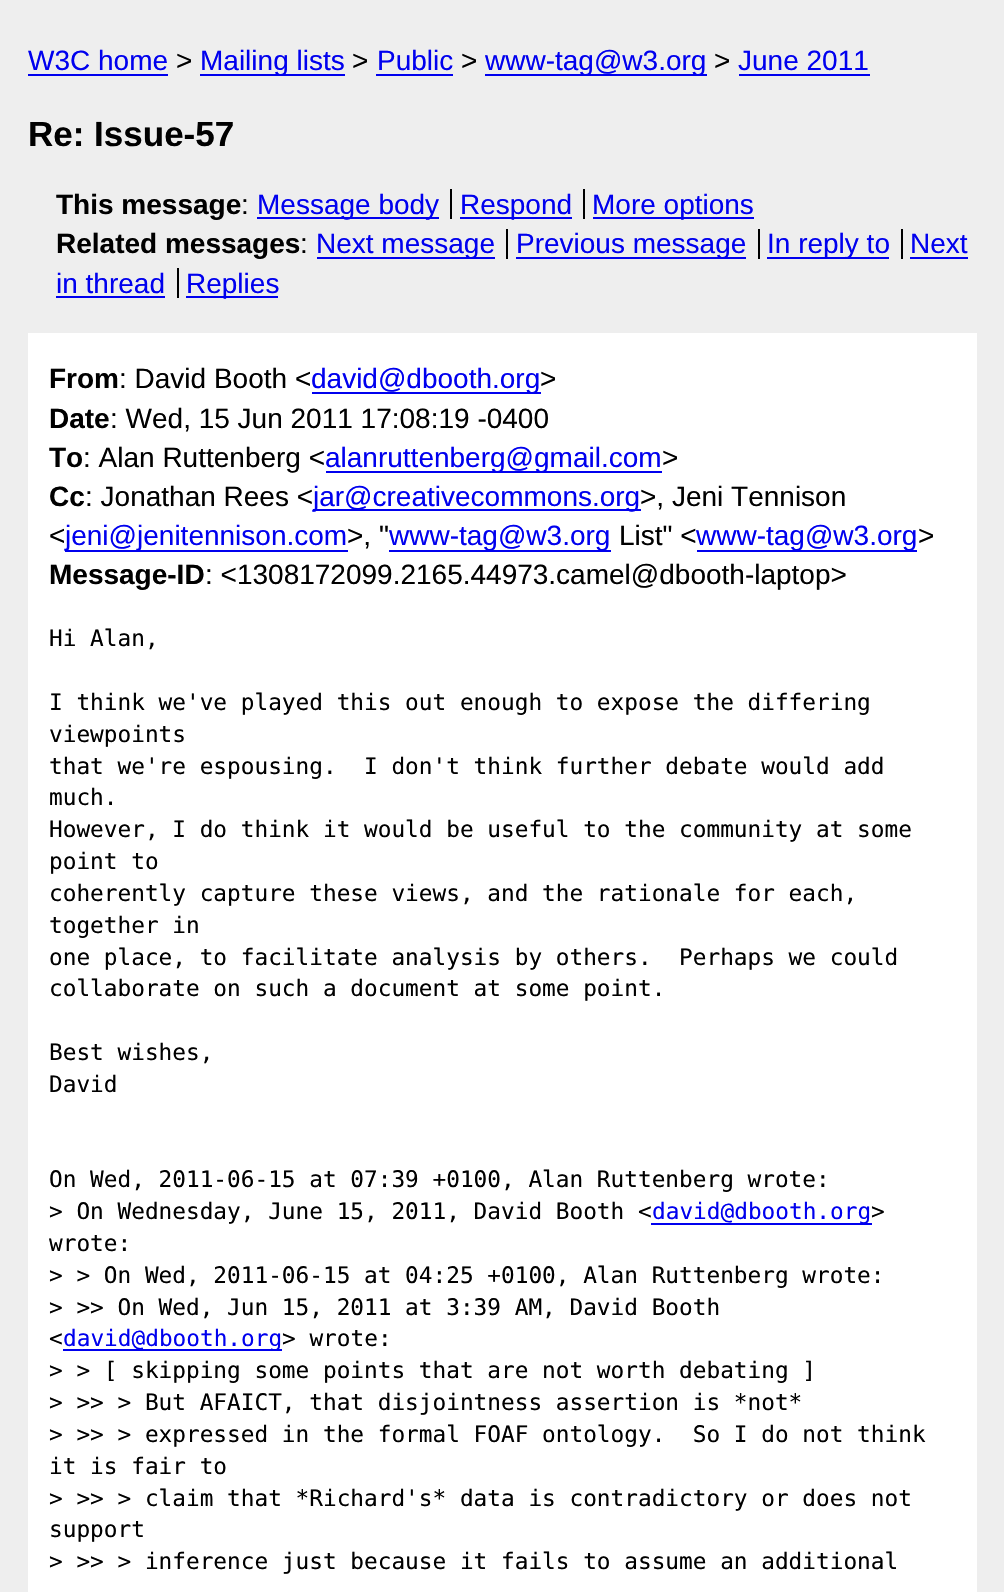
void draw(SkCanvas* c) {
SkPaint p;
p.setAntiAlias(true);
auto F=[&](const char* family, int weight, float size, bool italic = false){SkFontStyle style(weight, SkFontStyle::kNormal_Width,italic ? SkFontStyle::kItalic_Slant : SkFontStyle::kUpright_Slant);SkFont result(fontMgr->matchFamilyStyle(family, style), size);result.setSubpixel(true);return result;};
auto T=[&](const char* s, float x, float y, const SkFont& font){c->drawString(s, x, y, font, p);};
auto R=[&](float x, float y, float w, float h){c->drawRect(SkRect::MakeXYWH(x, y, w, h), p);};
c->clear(0xffeeeeee);
auto f1 = F("Liberation Sans",400,28);
p.setColor(0xff0000ee);
T("W3C home",28,70,f1);
R(28,74,140,2);
p.setColor(0xff000000);
T(">",176,70,f1);
p.setColor(0xff0000ee);
R(200,74,145,2);
T("Mailing lists",200,70,f1);
p.setColor(0xff000000);
T(">",352,70,f1);
p.setColor(0xff0000ee);
T("Public",377,70,f1);
R(376,74,77,2);
p.setColor(0xff000000);
T(">",461,70,f1);
p.setColor(0xff0000ee);
R(485,74,222,2);
T("www-tag@w3.org",485,70,f1);
p.setColor(0xff000000);
T(">",714,70,f1);
p.setColor(0xff0000ee);
T("June 2011",738,70,f1);
R(739,74,131,2);
auto f2 = F("Liberation Sans",700,35);
p.setColor(0xff000000);
T("Re: Issue-57",28,146,f2);
auto f3 = F("Liberation Sans",700,28);
T("This message",56,214,f3);
T(":",241,214,f1);
p.setColor(0xff0000ee);
R(257,217,182,2);
T("Message body",257,214,f1);
R(460,217,112,2);
T("Respond",460,214,f1);
p.setColor(0xff000000);
R(450,189,2,30);
p.setColor(0xff0000ee);
R(593,217,161,2);
T("More options",592,214,f1);
p.setColor(0xff000000);
R(583,189,2,30);
T("Related messages",56,253,f3);
T(":",300,253,f1);
p.setColor(0xff0000ee);
R(317,257,178,2);
T("Next message",316,253,f1);
R(516,257,230,2);
T("Previous message",516,253,f1);
p.setColor(0xff000000);
R(506,229,2,30);
p.setColor(0xff0000ee);
R(767,257,122,2);
T("In reply to",767,253,f1);
p.setColor(0xff000000);
R(758,229,2,30);
p.setColor(0xff0000ee);
T("Next",910,253,f1);
p.setColor(0xff000000);
R(901,229,2,30);
p.setColor(0xff0000ee);
R(910,257,58,2);
T("in thread",56,293,f1);
p.setColor(0xff000000);
R(177,268,2,30);
p.setColor(0xff0000ee);
R(56,296,109,2);
R(186,296,92,2);
T("Replies",186,293,f1);
p.setColor(0xffffffff);
R(28,333,949,1259);
p.setColor(0xff000000);
T("From",49,388,f3);
T(": David Booth <",119,388,f1);
p.setColor(0xff0000ee);
R(312,392,229,2);
T("david@dbooth.org",311,388,f1);
p.setColor(0xff000000);
T(">",540,388,f1);
T("Date",49,428,f3);
T(": Wed, 15 Jun 2011 17:08:19 -0400",110,428,f1);
T("To",49,467,f3);
T(": Alan Ruttenberg <",83,467,f1);
p.setColor(0xff0000ee);
R(326,471,336,2);
T("alanruttenberg@gmail.com",325,467,f1);
p.setColor(0xff000000);
T(">",662,467,f1);
T("Cc",49,506,f3);
T(": Jonathan Rees <",85,506,f1);
p.setColor(0xff0000ee);
R(313,509,328,2);
T("jar@creativecommons.org",313,506,f1);
p.setColor(0xff000000);
T(">, Jeni Tennison",640,506,f1);
T("<",49,545,f1);
p.setColor(0xff0000ee);
R(65,550,283,2);
T("jeni@jenitennison.com",65,545,f1);
p.setColor(0xff000000);
T(">, \"",347,545,f1);
p.setColor(0xff0000ee);
R(389,550,222,2);
T("www-tag@w3.org",389,545,f1);
p.setColor(0xff000000);
T("List\" <",619,545,f1);
p.setColor(0xff0000ee);
R(697,550,220,2);
T("www-tag@w3.org",696,545,f1);
p.setColor(0xff000000);
T(">",918,545,f1);
T("Message-ID",49,584,f3);
T(": <1308172099.2165.44973.camel@dbooth-laptop>",205,584,f1);
auto f4 = F("DejaVu Sans Mono",400,22.75);
T("Hi Alan,",49,646,f4);
T("I think we've played this out enough to expose the differing",49,710,f4);
T("viewpoints",49,742,f4);
T("that we're espousing.  I don't think further debate would add",49,774,f4);
T("much.",49,805,f4);
T("However, I do think it would be useful to the community at some",49,837,f4);
T("point to",49,869,f4);
T("coherently capture these views, and the rationale for each,",49,901,f4);
T("together in",49,933,f4);
T("one place, to facilitate analysis by others.  Perhaps we could",49,965,f4);
T("collaborate on such a document at some point.",49,996,f4);
T("Best wishes,",49,1060,f4);
T("David",49,1092,f4);
T("On Wed, 2011-06-15 at 07:39 +0100, Alan Ruttenberg wrote:",49,1187,f4);
T("> On Wednesday, June 15, 2011, David Booth <",49,1219,f4);
p.setColor(0xff0000ee);
R(651,1223,221,2);
T("david@dbooth.org",652,1219,f4);
p.setColor(0xff000000);
T(">",871,1219,f4);
T("wrote:",49,1251,f4);
T("> > On Wed, 2011-06-15 at 04:25 +0100, Alan Ruttenberg wrote:",49,1283,f4);
T("> >> On Wed, Jun 15, 2011 at 3:39 AM, David Booth",49,1315,f4);
T("<",49,1346,f4);
p.setColor(0xff0000ee);
R(63,1349,219,2);
T("david@dbooth.org",63,1346,f4);
p.setColor(0xff000000);
T("> wrote:",282,1346,f4);
T("> > [ skipping some points that are not worth debating ]",49,1378,f4);
T("> >> > But AFAICT, that disjointness assertion is *not*",49,1410,f4);
T("> >> > expressed in the formal FOAF ontology.  So I do not think",49,1442,f4);
T("it is fair to",49,1474,f4);
T("> >> > claim that *Richard's* data is contradictory or does not",49,1506,f4);
T("support",49,1537,f4);
T("> >> > inference just because it fails to assume an additional",49,1569,f4);
}
